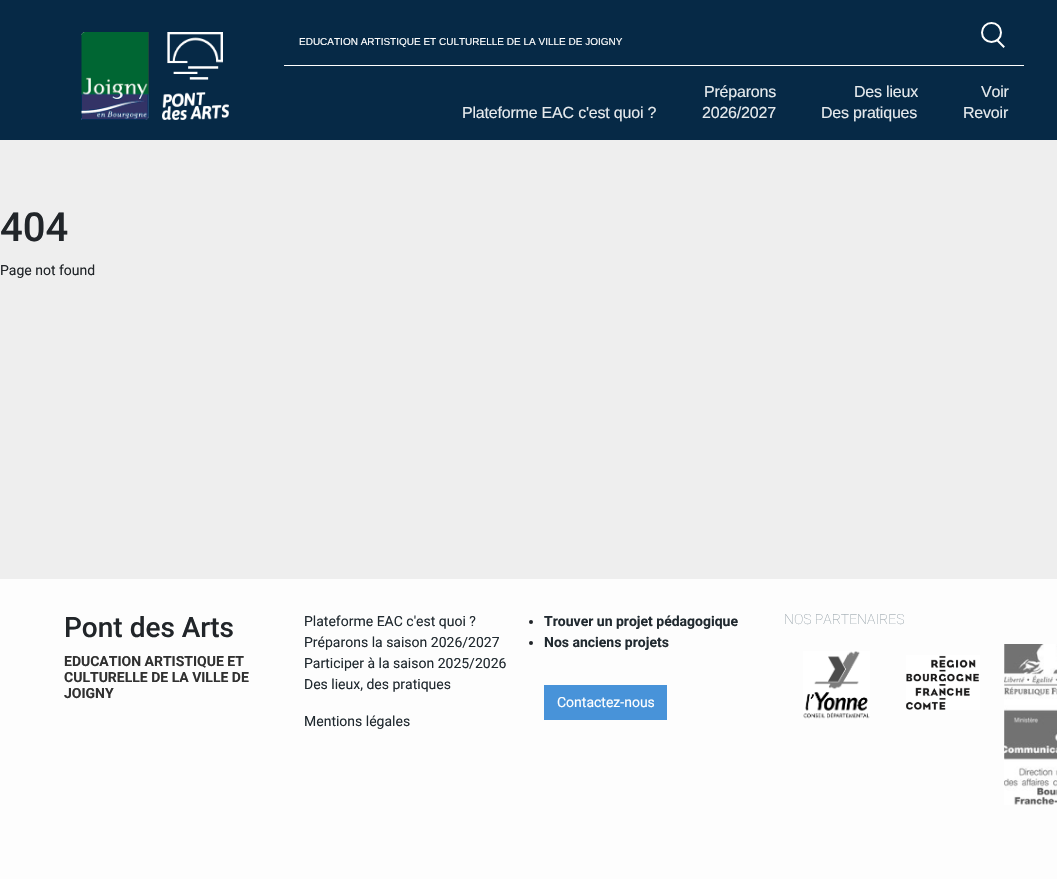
void draw(SkCanvas* c) {
SkPaint p;
p.setAntiAlias(true);
auto F=[&](const char* family, int weight, float size, bool italic = false){SkFontStyle style(weight, SkFontStyle::kNormal_Width,italic ? SkFontStyle::kItalic_Slant : SkFontStyle::kUpright_Slant);SkFont result(fontMgr->matchFamilyStyle(family, style), size);result.setSubpixel(true);return result;};
auto T=[&](const char* s, float x, float y, const SkFont& font){c->drawString(s, x, y, font, p);};
auto L=[&](const char* s, float x, float y, const SkFont& font, const SkPaint& ink, float letter, float word){std::vector<SkGlyphID> glyphs(font.countText(s, strlen(s), SkTextEncoding::kUTF8));std::vector<float> xs(glyphs.size());font.textToGlyphs(s, strlen(s), SkTextEncoding::kUTF8, glyphs);font.getXPos(glyphs, xs, x);float extra = 0;for (size_t i = 0; i < glyphs.size(); i++) {xs[i] += extra;extra += letter + word * (glyphs[i] == font.unicharToGlyph(' '));}c->drawTextBlob(SkTextBlob::MakeFromPosHGlyphs(glyphs, xs, y, font), 0, 0, ink);};
auto R=[&](float x, float y, float w, float h){c->drawRect(SkRect::MakeXYWH(x, y, w, h), p);};
auto I=[&](const char* path, float x, float y, float w, float h){auto image = SkImages::DeferredFromEncodedData(SkData::MakeFromFileName(path));c->drawImageRect(image, SkRect::MakeXYWH(x, y, w, h), SkSamplingOptions());};
auto P=[&](const char* data, bool evenOdd = false){SkPath result = *SkParsePath::FromSVGString(data);if (evenOdd) result.setFillType(SkPathFillType::kEvenOdd);return result;};
c->clear(0xffeeeeee);
p.setColor(0xff062946);
R(0,0,1057,140);
I("1.png",81,32,68,88);
I("2.png",162,32,67,88);
p.setColor(0xffffffff);
R(284,65,740,1);
auto f1 = F("Liberation Sans",400,10);
T("EDUCATION ARTISTIQUE ET CULTURELLE DE LA VILLE DE JOIGNY",299,45,f1);
p.setStroke(true);
p.setStrokeWidth(2);
p.setStrokeCap(SkPaint::kSquare_Cap);
c->drawPath(P("M998 41l5.5 5.5"),p);
p.setStrokeCap(SkPaint::kButt_Cap);
c->drawCircle(991.5,32.5,9.5,p);
auto f2 = F("Liberation Sans",400,16);
p.setStroke(false);
p.setColor(0xffe6eaed);
L("Plateforme EAC c'est quoi ?",462,118,f2,p,-.2,0);
L("Préparons",704,97,f2,p,-.2,0);
L("2026/2027",702,118,f2,p,-.2,0);
L("Des lieux",854,97,f2,p,-.2,0);
L("Des pratiques",821,118,f2,p,-.2,0);
L("Voir",981,97,f2,p,-.2,0);
L("Revoir",963,118,f2,p,-.2,0);
auto f3 = F("Roboto",500,40);
p.setColor(0xff212529);
T("404",0,241,f3);
auto f4 = F("Roboto",400,14);
T("Page not found",0,275,f4);
p.setColor(0xfffdfdfd);
R(0,579,1057,300);
auto f5 = F("Roboto",500,28);
p.setColor(0xff212529);
T("Pont des Arts",64,637,f5);
auto f6 = F("Roboto",700,14);
p.setColor(0xff313131);
T("EDUCATION ARTISTIQUE ET",64,666,f6);
T("CULTURELLE DE LA VILLE DE",64,682,f6);
T("JOIGNY",64,698,f6);
p.setColor(0xff212a30);
T("Plateforme EAC c'est quoi ?",304,626,f4);
T("Préparons la saison 2026/2027",304,647,f4);
T("Participer à la saison 2025/2026",304,668,f4);
T("Des lieux, des pratiques",304,689,f4);
T("Mentions légales",304,726,f4);
p.setColor(0xff212529);
c->drawCircle(531,622,2,p);
p.setColor(0xff212a30);
T("Trouver un projet pédagogique",544,626,f6);
p.setColor(0xff212529);
c->drawCircle(531,643,2,p);
p.setColor(0xff212a30);
T("Nos anciens projets",544,647,f6);
p.setColor(0xff4893d9);
R(544,685,123,35);
p.setColor(0xffffffff);
T("Contactez-nous",557,707,f4);
auto f7 = F("Roboto",100,14);
p.setColor(0xff97a3aa);
T("NOS PARTENAIRES",784,624,f7);
I("3.png",803,651,67,68);
I("4.png",906,655,74,55);
I("5.png",1004,644,53,161);
}
